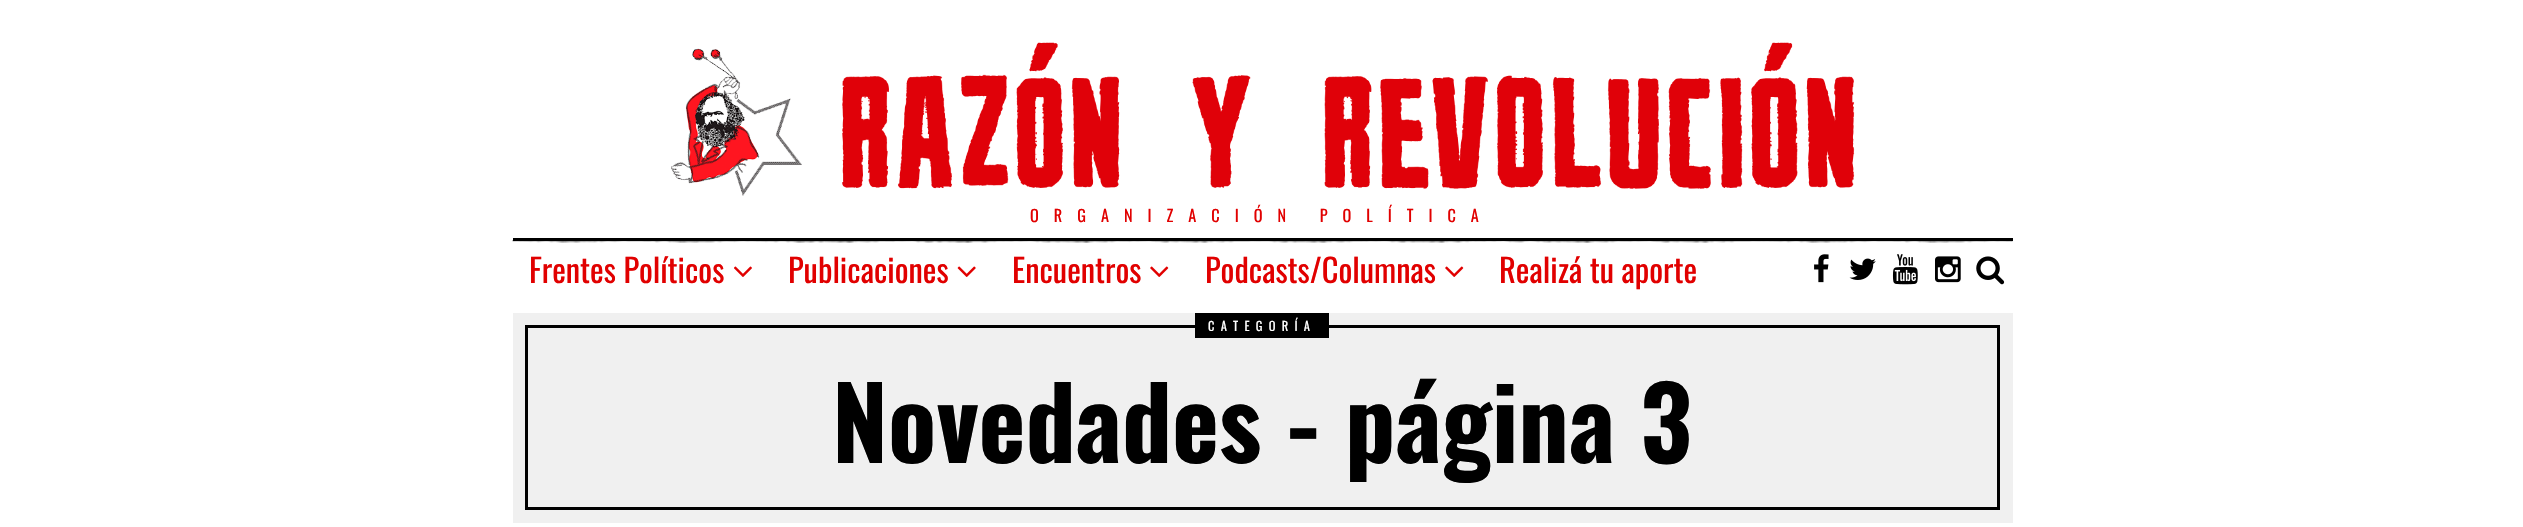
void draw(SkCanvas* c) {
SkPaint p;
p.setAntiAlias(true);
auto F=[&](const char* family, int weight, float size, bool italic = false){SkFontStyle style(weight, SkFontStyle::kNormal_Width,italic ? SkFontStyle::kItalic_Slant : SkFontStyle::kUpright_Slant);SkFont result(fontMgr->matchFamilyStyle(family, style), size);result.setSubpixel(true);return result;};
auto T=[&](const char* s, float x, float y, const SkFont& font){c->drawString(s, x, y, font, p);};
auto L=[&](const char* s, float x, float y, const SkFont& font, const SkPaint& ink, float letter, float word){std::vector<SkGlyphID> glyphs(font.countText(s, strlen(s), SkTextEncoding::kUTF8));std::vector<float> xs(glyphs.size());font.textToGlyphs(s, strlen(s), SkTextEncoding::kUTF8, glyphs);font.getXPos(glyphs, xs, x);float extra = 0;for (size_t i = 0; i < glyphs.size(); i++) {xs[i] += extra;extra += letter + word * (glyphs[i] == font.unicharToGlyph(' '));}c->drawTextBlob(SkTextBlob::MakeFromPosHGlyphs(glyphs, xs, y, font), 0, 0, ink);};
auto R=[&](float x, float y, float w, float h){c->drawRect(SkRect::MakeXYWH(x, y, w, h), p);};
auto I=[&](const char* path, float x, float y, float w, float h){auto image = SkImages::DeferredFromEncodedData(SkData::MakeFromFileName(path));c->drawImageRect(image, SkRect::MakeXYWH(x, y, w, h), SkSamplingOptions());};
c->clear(0xffffffff);
I("1.png",671,42,1184,154);
auto f1 = F("Oswald",400,16.25);
p.setColor(0xffe10000);
L("ORGANIZACIÓN POLÍTICA",1030,222,f1,p,15,0);
I("2.png",512,240,1501,3);
p.setColor(0xff000000);
R(513,238,1500,3);
auto f2 = F("Oswald",400,32.5);
p.setColor(0xffe10000);
T("Frentes Políticos",529,283,f2);
I("3.png",734,266,18,11);
T("Publicaciones",788,283,f2);
I("4.png",957,266,19,11);
T("Encuentros",1012,283,f2);
I("5.png",1150,266,19,11);
T("Podcasts/Columnas",1205,283,f2);
I("5.png",1445,266,19,11);
T("Realizá tu aporte",1499,283,f2);
I("6.png",1814,254,15,29);
I("7.png",1849,258,27,22);
I("8.png",1892,254,26,31);
I("9.png",1935,256,26,27);
I("10.png",1976,256,29,29);
p.setColor(0xfff0f0f0);
R(513,313,1500,210);
p.setStroke(true);
p.setStrokeWidth(3);
p.setColor(0xff000000);
c->drawRect(SkRect::MakeXYWH(526.5,326.5,1472,182),p);
p.setStroke(false);
R(1195,313,134,25);
auto f3 = F("Oswald",400,12.5);
p.setColor(0xffffffff);
L("CATEGORÍA",1208,331,f3,p,6.25,0);
auto f4 = F("Oswald",700,100);
p.setColor(0xff000000);
T("Novedades - página 3",832,463,f4);
}
